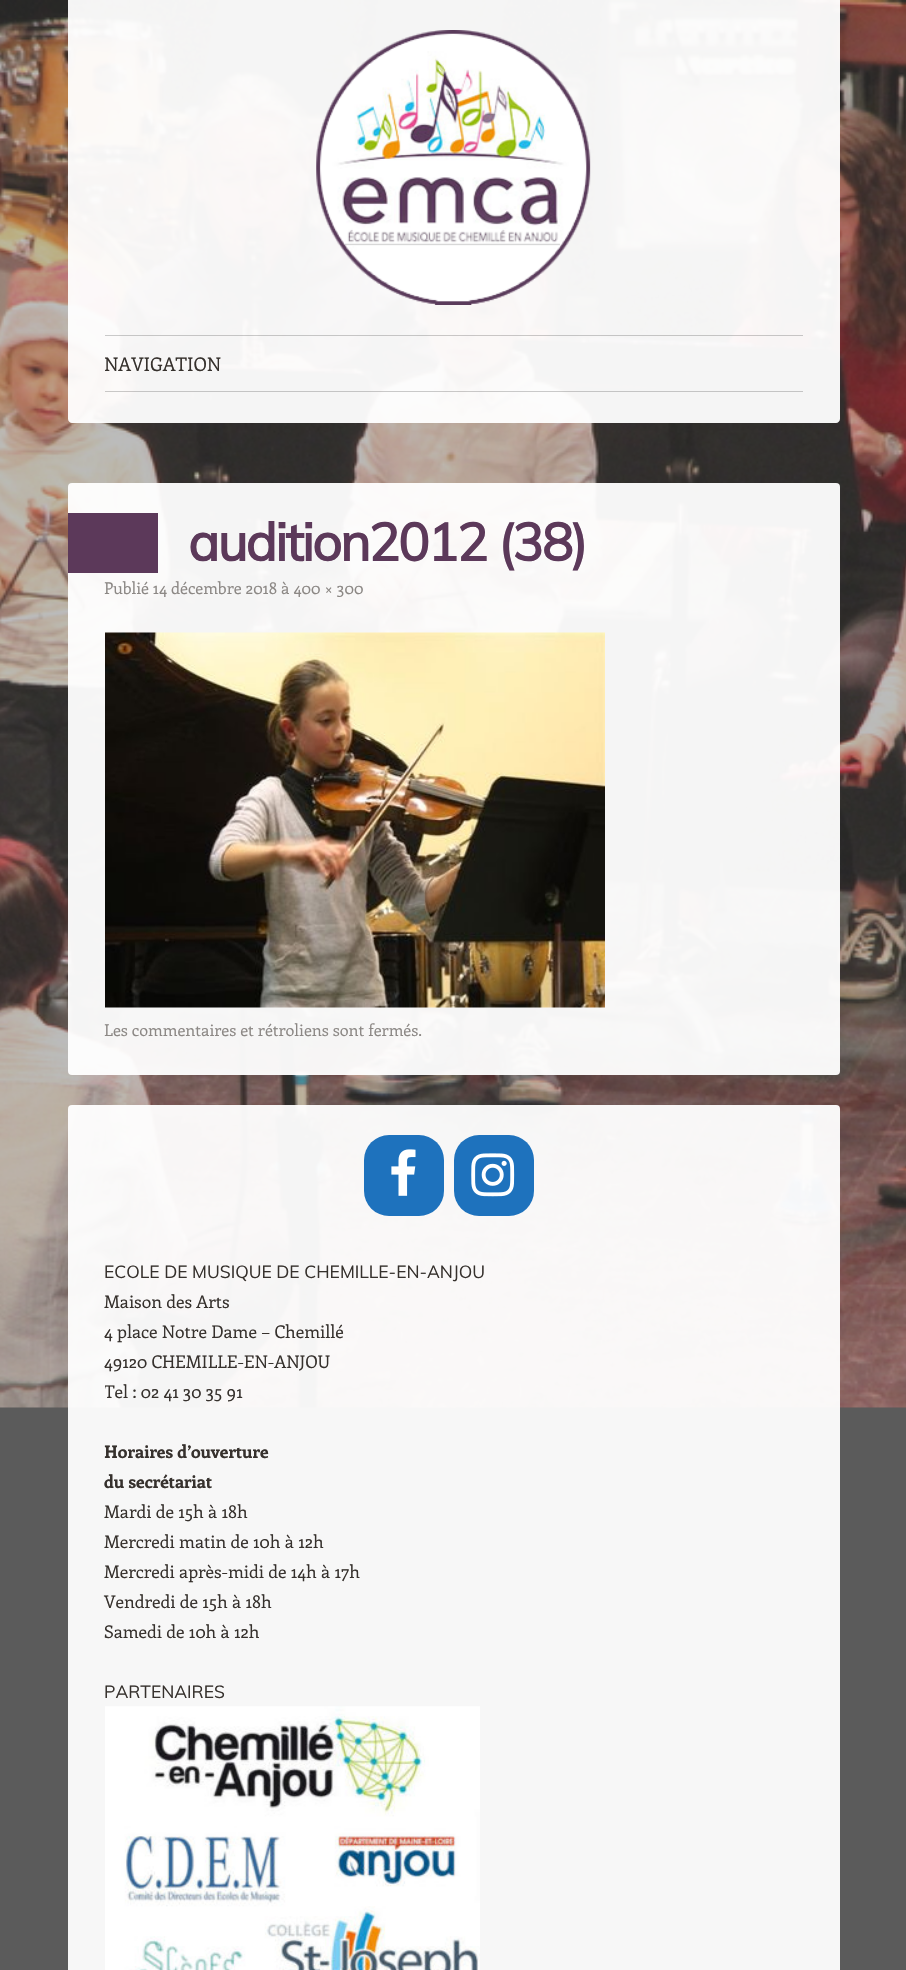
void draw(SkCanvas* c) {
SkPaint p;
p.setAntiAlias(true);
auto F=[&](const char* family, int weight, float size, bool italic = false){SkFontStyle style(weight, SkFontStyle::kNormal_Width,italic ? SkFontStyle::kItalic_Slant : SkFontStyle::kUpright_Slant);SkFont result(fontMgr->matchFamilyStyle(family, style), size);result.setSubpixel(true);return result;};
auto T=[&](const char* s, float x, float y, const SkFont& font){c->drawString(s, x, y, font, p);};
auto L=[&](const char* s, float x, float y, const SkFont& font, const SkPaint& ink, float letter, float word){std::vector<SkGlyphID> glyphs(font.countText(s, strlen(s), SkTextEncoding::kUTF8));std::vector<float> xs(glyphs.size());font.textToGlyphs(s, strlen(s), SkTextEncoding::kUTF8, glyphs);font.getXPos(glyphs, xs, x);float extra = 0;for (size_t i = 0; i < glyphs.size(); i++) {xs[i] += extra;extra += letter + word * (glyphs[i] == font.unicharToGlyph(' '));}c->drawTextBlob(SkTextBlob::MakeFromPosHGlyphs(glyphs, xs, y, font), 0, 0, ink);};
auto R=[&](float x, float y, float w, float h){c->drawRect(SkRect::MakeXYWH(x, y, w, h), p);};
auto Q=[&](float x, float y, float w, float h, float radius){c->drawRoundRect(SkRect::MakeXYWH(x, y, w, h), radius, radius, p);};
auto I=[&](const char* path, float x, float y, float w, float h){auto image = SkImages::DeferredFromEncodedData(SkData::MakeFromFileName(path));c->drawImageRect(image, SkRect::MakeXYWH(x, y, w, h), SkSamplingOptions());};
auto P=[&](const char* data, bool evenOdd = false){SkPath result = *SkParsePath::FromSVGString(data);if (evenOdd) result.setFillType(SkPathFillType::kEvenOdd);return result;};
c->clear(0xff5b5b5b);
I("1.png",0,0,906,1408);
p.setColor(0xf2ffffff);
c->drawPath(P("M68 0h772v419c0 2-2 4-4 4h-764c-2 0-4-2-4-4z"),p);
I("2.png",316,30,275,275);
p.setColor(0x33000000);
R(105,335,698,1);
R(105,391,698,1);
auto f1 = F("Enriqueta",400,18.75);
p.setColor(0xff36312d);
T("NAVIGATION",104,371,f1);
p.setColor(0xf2ffffff);
Q(68,483,772,592,4);
p.setColor(0xff5c395a);
R(68,513,90,60);
auto f2 = F("Muli",700,52.5);
L("audition2012 (38)",188,561,f2,p,-2.1,0);
auto f3 = F("Enriqueta",400,16.25);
p.setColor(0xff8c8885);
T("Publié 14 décembre 2018 à 400 × 300",104,594,f3);
I("3.png",105,632,500,376);
T("Les commentaires et rétroliens sont fermés.",104,1036,f3);
p.setColor(0xf2ffffff);
Q(68,1105,772,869,4);
p.setColor(0xff1e72bd);
Q(364,1135,80,81,25);
I("4.png",391,1149,25,47);
Q(454,1135,80,81,25);
I("5.png",471,1153,44,44);
auto f4 = F("Muli",400,17.5);
p.setColor(0xff36312d);
T("ECOLE DE MUSIQUE DE CHEMILLE-EN-ANJOU",104,1278,f4);
auto f5 = F("Enriqueta",400,17.5);
T("Maison des Arts",104,1308,f5);
T("4 place Notre Dame – Chemillé",104,1338,f5);
T("49120 CHEMILLE-EN-ANJOU",104,1368,f5);
c->save();
c->clipRect(SkRect::MakeXYWH(105,1256,698,390));
T("Tel : 02 41 30 35 91",104,1398,f5);
c->restore();
auto f6 = F("Enriqueta",700,17.5);
T("Horaires d’ouverture",104,1458,f6);
T("du secrétariat",104,1488,f6);
T("Mardi de 15h à 18h",104,1518,f5);
T("Mercredi matin de 10h à 12h",104,1548,f5);
T("Mercredi après-midi de 14h à 17h",104,1578,f5);
T("Vendredi de 15h à 18h",104,1608,f5);
T("Samedi de 10h à 12h",104,1638,f5);
T("PARTENAIRES",104,1698,f4);
I("6.png",105,1706,375,264);
}
